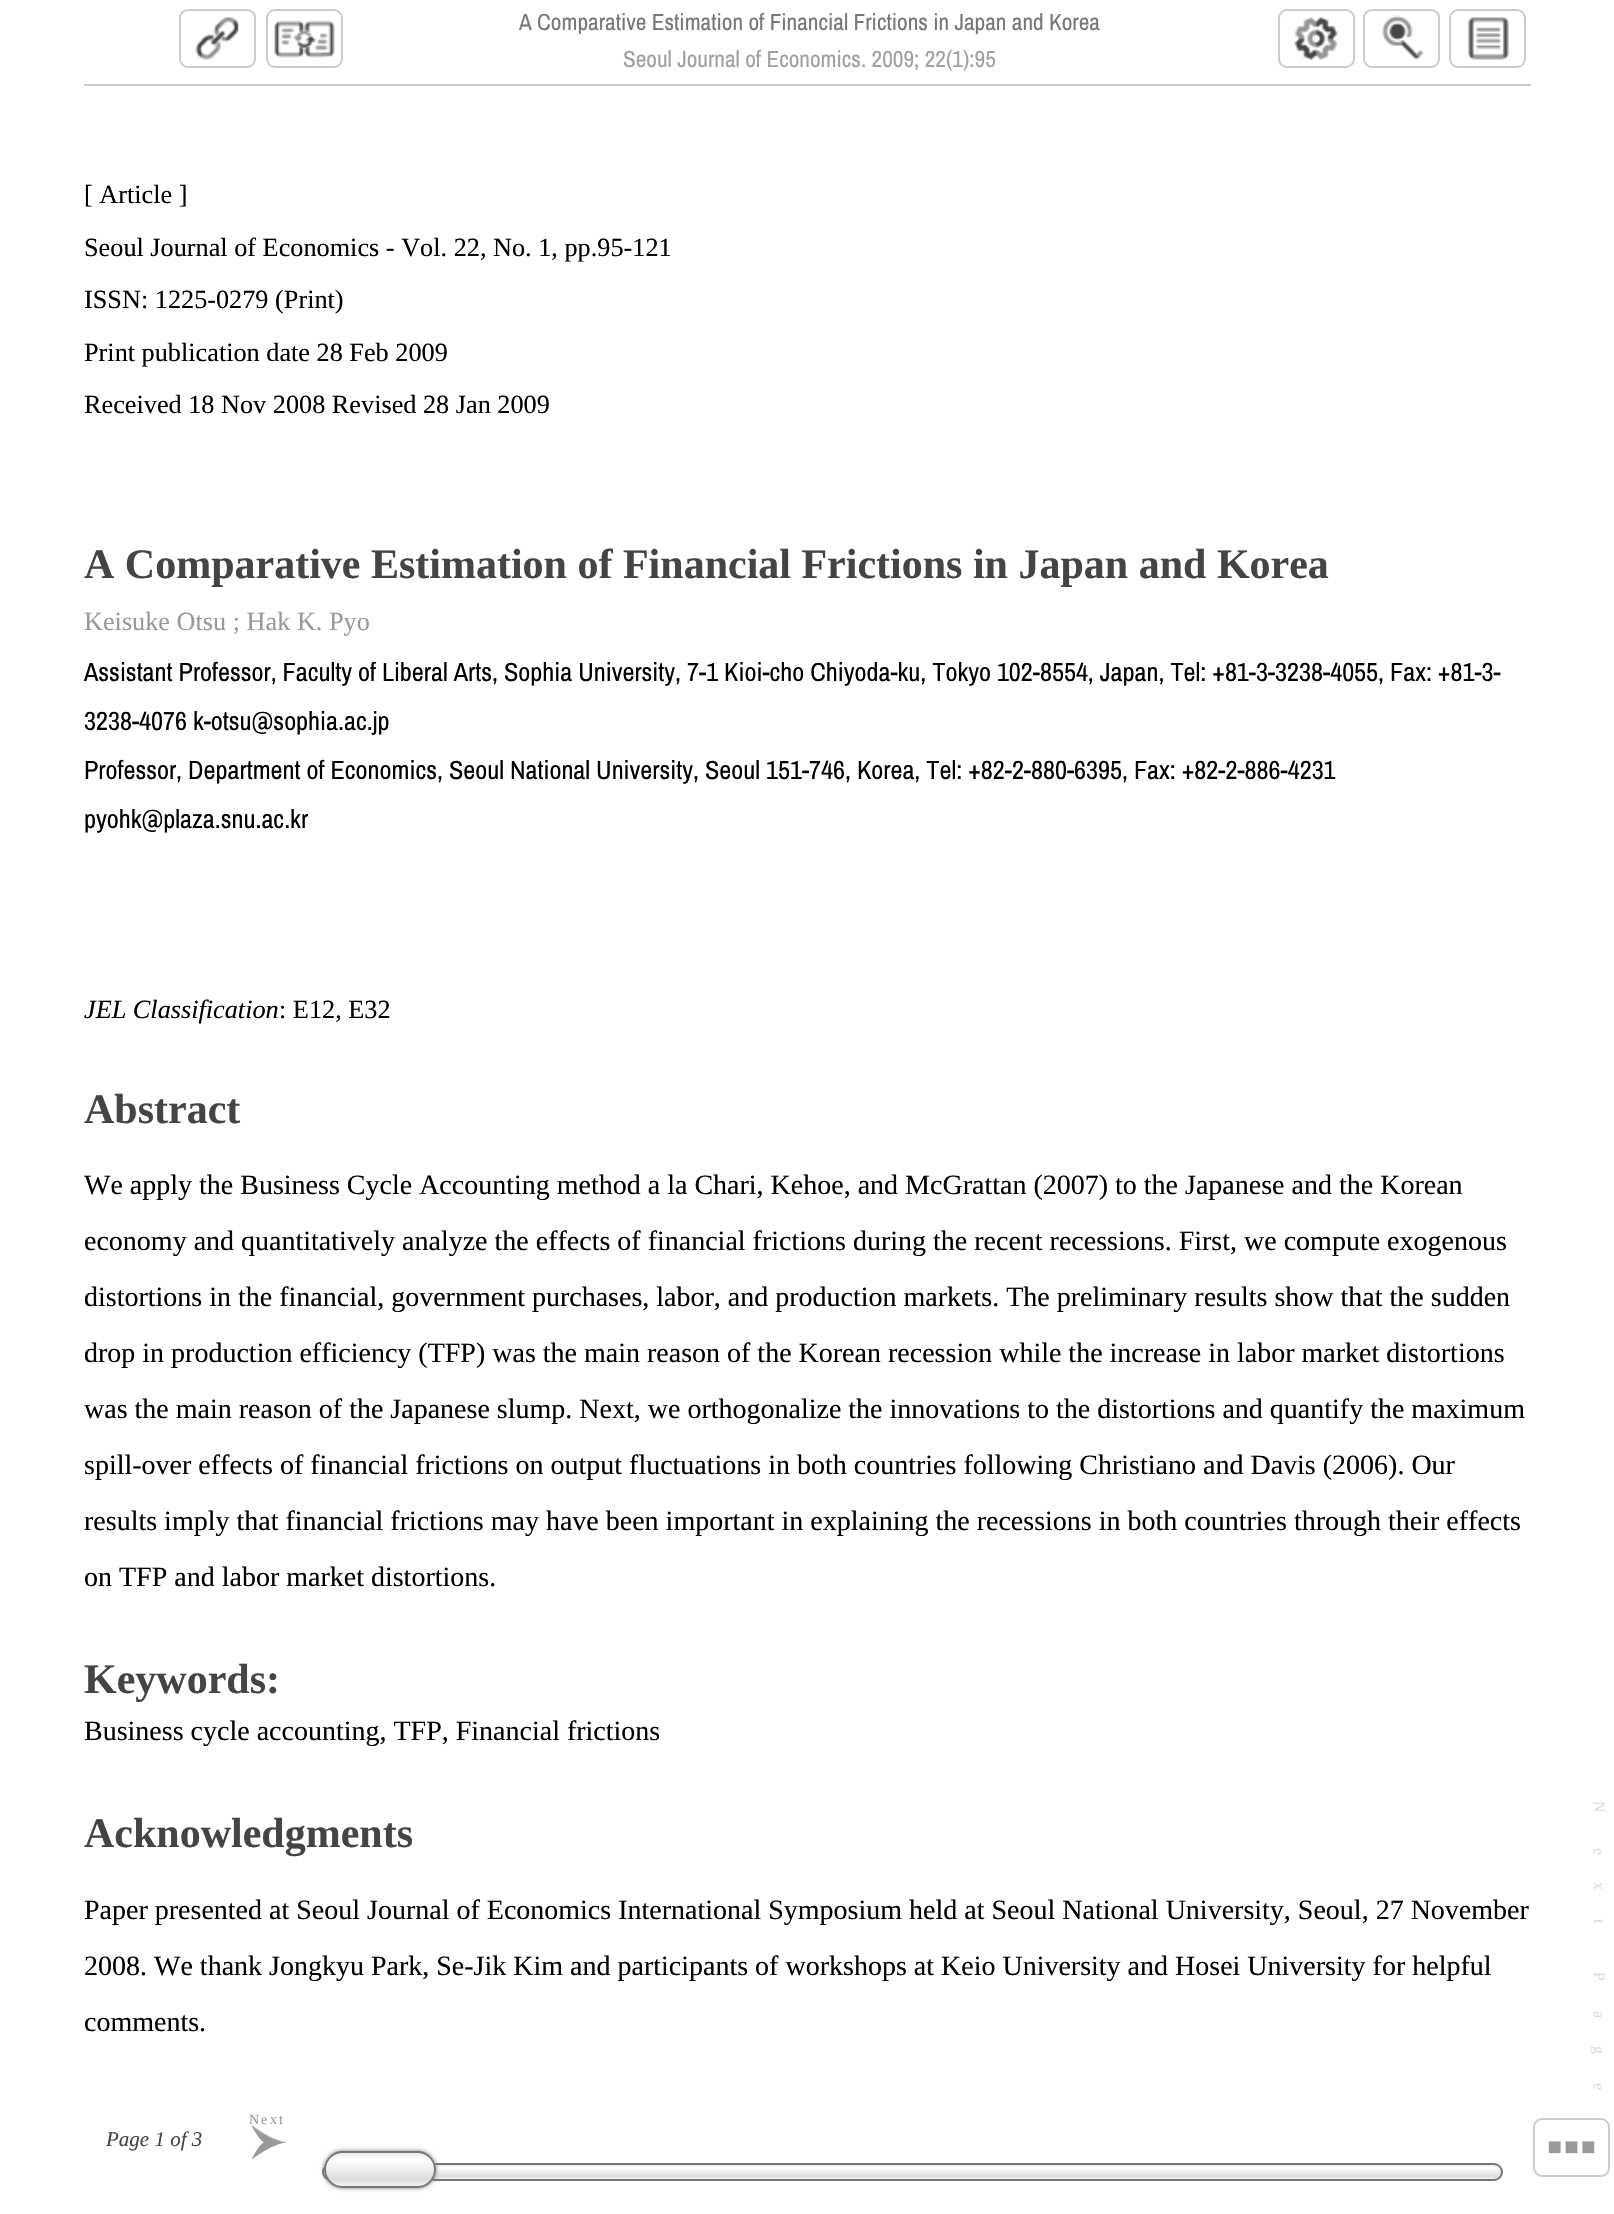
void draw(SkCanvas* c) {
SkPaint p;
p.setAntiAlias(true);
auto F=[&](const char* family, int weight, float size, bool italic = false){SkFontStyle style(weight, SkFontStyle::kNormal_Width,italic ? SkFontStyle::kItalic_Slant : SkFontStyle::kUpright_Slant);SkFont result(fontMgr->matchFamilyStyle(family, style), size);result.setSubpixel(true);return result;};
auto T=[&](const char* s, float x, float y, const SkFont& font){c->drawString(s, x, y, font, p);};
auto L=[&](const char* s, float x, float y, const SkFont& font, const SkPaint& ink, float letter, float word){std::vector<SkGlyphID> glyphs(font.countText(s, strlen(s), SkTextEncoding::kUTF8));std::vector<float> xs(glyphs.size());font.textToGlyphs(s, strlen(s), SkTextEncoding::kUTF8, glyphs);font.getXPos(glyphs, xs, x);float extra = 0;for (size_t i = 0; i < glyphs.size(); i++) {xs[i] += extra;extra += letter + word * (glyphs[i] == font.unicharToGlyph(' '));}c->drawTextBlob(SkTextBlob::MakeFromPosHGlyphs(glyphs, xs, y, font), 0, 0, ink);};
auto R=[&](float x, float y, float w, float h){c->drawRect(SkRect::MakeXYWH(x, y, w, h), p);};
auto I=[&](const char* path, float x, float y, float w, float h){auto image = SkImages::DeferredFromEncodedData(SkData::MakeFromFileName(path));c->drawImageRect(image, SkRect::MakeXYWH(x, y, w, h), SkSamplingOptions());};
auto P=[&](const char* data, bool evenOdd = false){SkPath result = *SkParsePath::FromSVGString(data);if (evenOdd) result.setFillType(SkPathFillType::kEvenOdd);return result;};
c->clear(0xffffffff);
p.setColor(0xffcccccc);
R(84,84,1447,2);
p.setStroke(true);
p.setStrokeWidth(2);
c->drawRoundRect(SkRect::MakeXYWH(180,10,75,57),8,8,p);
I("1.png",195,17,44,43);
c->drawRoundRect(SkRect::MakeXYWH(267,10,75,57),8,8,p);
I("2.png",274,20,61,38);
auto f1 = F("Archivo Narrow",400,23.3);
p.setStroke(false);
p.setColor(0xff777777);
T("A Comparative Estimation of Financial Frictions in Japan and Korea",519,30,f1);
p.setColor(0xffa0a0a0);
T("Seoul Journal of Economics. 2009; 22(1):95",623,67,f1);
p.setStroke(true);
p.setColor(0xffcccccc);
c->drawRoundRect(SkRect::MakeXYWH(1279,10,75,57),8,8,p);
I("3.png",1294,17,44,43);
c->drawRoundRect(SkRect::MakeXYWH(1364,10,75,57),8,8,p);
I("4.png",1382,15,42,45);
c->drawRoundRect(SkRect::MakeXYWH(1450,10,75,57),8,8,p);
I("5.png",1467,17,42,43);
auto f2 = F("Liberation Serif",400,16);
p.setStroke(false);
p.setColor(0xffdddddd);
c->save();
c->rotate(90,1594,1801);
L("N",1594,1801,f2,p,22,0);
c->restore();
c->save();
c->rotate(90,1594,1848);
L("e",1594,1848,f2,p,13,0);
c->restore();
c->save();
c->rotate(90,1594,1882);
L("x",1594,1882,f2,p,15,0);
c->restore();
c->save();
c->rotate(90,1594,1919);
L("t",1594,1919,f2,p,8,0);
c->restore();
c->save();
c->rotate(90,1594,1972);
L("P",1594,1972,f2,p,17,0);
c->restore();
c->save();
c->rotate(90,1594,2011);
L("a",1594,2011,f2,p,13,0);
c->restore();
c->save();
c->rotate(90,1594,2046);
L("g",1594,2046,f2,p,15,0);
c->restore();
c->save();
c->rotate(90,1594,2083);
L("e",1594,2083,f2,p,13,0);
c->restore();
auto f3 = F("Liberation Serif",400,14);
p.setColor(0xff999999);
T("N",249,2124,f3);
T("e",261,2124,f3);
c->drawPath(P("M252 2126c45 33 45 0 0 33c17-33 17 0 0-33"),p);
p.setStroke(true);
p.setStrokeWidth(.6);
c->drawPath(P("M252 2125.5c45 33.5 45 0 0 33.5c17-33.5 17 0 0-33.5"),p);
p.setStroke(false);
T("x",270,2124,f3);
T("t",279,2124,f3);
auto f4 = F("Liberation Serif",400,21,true);
p.setColor(0xff444444);
T("Page 1 of 3",106,2146,f4);
c->save();
c->clipPath(P("M331 2163h1163c5 0 9 4 9 9c0 5-4 9-9 9h-1163c-5 0-9-4-9-9c0-5 4-9 9-9z"),true);
{
const SkColor colors[] = {0xffeeeeee,0xffdddddd,0xffffffff,0xffeeeeee};
const float stops[] = {.05,.19,.81,.95};
const SkPoint ends[] = {{913,2179}, {913,2165}};
p.setShader(SkGradientShader::MakeLinear(ends, colors, stops, 4, SkTileMode::kClamp));
p.setAlpha(255);
}
R(322,2165,1181,14);
c->restore();
p.setStroke(true);
p.setStrokeWidth(2);
p.setShader(nullptr);
p.setColor(0xff777777);
c->drawRoundRect(SkRect::MakeXYWH(323,2164,1179,16),8,8,p);
p.setStroke(false);
p.setMaskFilter(SkMaskFilter::MakeBlur(kNormal_SkBlurStyle, 2));
c->drawRoundRect(SkRect::MakeXYWH(324,2151,112,37),18.5,18.5,p);
p.setMaskFilter(nullptr);
c->save();
c->clipPath(P("M342.5 2151h75c10 0 18.5 8.5 18.5 18.5c0 10-8.5 18.5-18.5 18.5h-75c-10 0-18.5-8.5-18.5-18.5c0-10 8.5-18.5 18.5-18.5z"),true);
{
const SkColor colors[] = {0xffeeeeee,0xffdddddd,0xffffffff,0xffeeeeee};
const float stops[] = {.05,.19,.81,.95};
const SkPoint ends[] = {{380,2186}, {380,2153}};
p.setShader(SkGradientShader::MakeLinear(ends, colors, stops, 4, SkTileMode::kClamp));
p.setAlpha(255);
}
R(324,2153,112,33);
c->restore();
p.setStroke(true);
p.setShader(nullptr);
p.setColor(0xff777777);
c->drawRoundRect(SkRect::MakeXYWH(325,2152,110,35),17.5,17.5,p);
p.setColor(0xffcccccc);
c->drawRoundRect(SkRect::MakeXYWH(1534,2119,75,57),8,8,p);
I("6.png",1548,2141,47,13);
auto f5 = F("Liberation Serif",400,26.25);
p.setStroke(false);
p.setColor(0xff000000);
T("[ Article ]",84,203,f5);
T("Seoul Journal of Economics - Vol. 22, No. 1, pp.95-121",84,256,f5);
T("ISSN: 1225-0279 (Print)",84,308,f5);
T("Print publication date 28 Feb 2009",84,361,f5);
T("Received 18 Nov 2008 Revised 28 Jan 2009",84,413,f5);
auto f6 = F("Liberation Serif",700,42);
p.setColor(0xff444444);
T("A Comparative Estimation of Financial Frictions in Japan and Korea",84,578,f6);
p.setColor(0xff999999);
T("Keisuke Otsu ; Hak K. Pyo",84,630,f5);
auto f7 = F("Archivo Narrow",400,26.25);
p.setColor(0xff000000);
T("Assistant Professor, Faculty of Liberal Arts, Sophia University, 7-1 Kioi-cho Chiyoda-ku, Tokyo 102-8554, Japan, Tel: +81-3-3238-4055, Fax: +81-3-",84,681,f7);
T("3238-4076 k-otsu@sophia.ac.jp",84,730,f7);
T("Professor, Department of Economics, Seoul National University, Seoul 151-746, Korea, Tel: +82-2-880-6395, Fax: +82-2-886-4231",84,779,f7);
T("pyohk@plaza.snu.ac.kr",84,828,f7);
auto f8 = F("Liberation Serif",400,26.25,true);
T("JEL Classification",84,1018,f8);
T(": E12, E32",279,1018,f5);
p.setColor(0xff444444);
T("Abstract",84,1123,f6);
auto f9 = F("Liberation Serif",400,28);
p.setColor(0xff000000);
T("We apply the Business Cycle Accounting method a la Chari, Kehoe, and McGrattan (2007) to the Japanese and the Korean",84,1194,f9);
T("economy and quantitatively analyze the effects of financial frictions during the recent recessions. First, we compute exogenous",84,1250,f9);
T("distortions in the financial, government purchases, labor, and production markets. The preliminary results show that the sudden",84,1306,f9);
T("drop in production efficiency (TFP) was the main reason of the Korean recession while the increase in labor market distortions",84,1362,f9);
T("was the main reason of the Japanese slump. Next, we orthogonalize the innovations to the distortions and quantify the maximum",84,1418,f9);
T("spill-over effects of financial frictions on output fluctuations in both countries following Christiano and Davis (2006). Our",84,1474,f9);
T("results imply that financial frictions may have been important in explaining the recessions in both countries through their effects",84,1530,f9);
T("on TFP and labor market distortions.",84,1586,f9);
p.setColor(0xff444444);
T("Keywords:",84,1693,f6);
p.setColor(0xff000000);
T("Business cycle accounting, TFP, Financial frictions",84,1740,f9);
p.setColor(0xff444444);
T("Acknowledgments",84,1847,f6);
p.setColor(0xff000000);
T("Paper presented at Seoul Journal of Economics International Symposium held at Seoul National University, Seoul, 27 November",84,1919,f9);
T("2008. We thank Jongkyu Park, Se-Jik Kim and participants of workshops at Keio University and Hosei University for helpful",84,1975,f9);
T("comments.",84,2031,f9);
}
